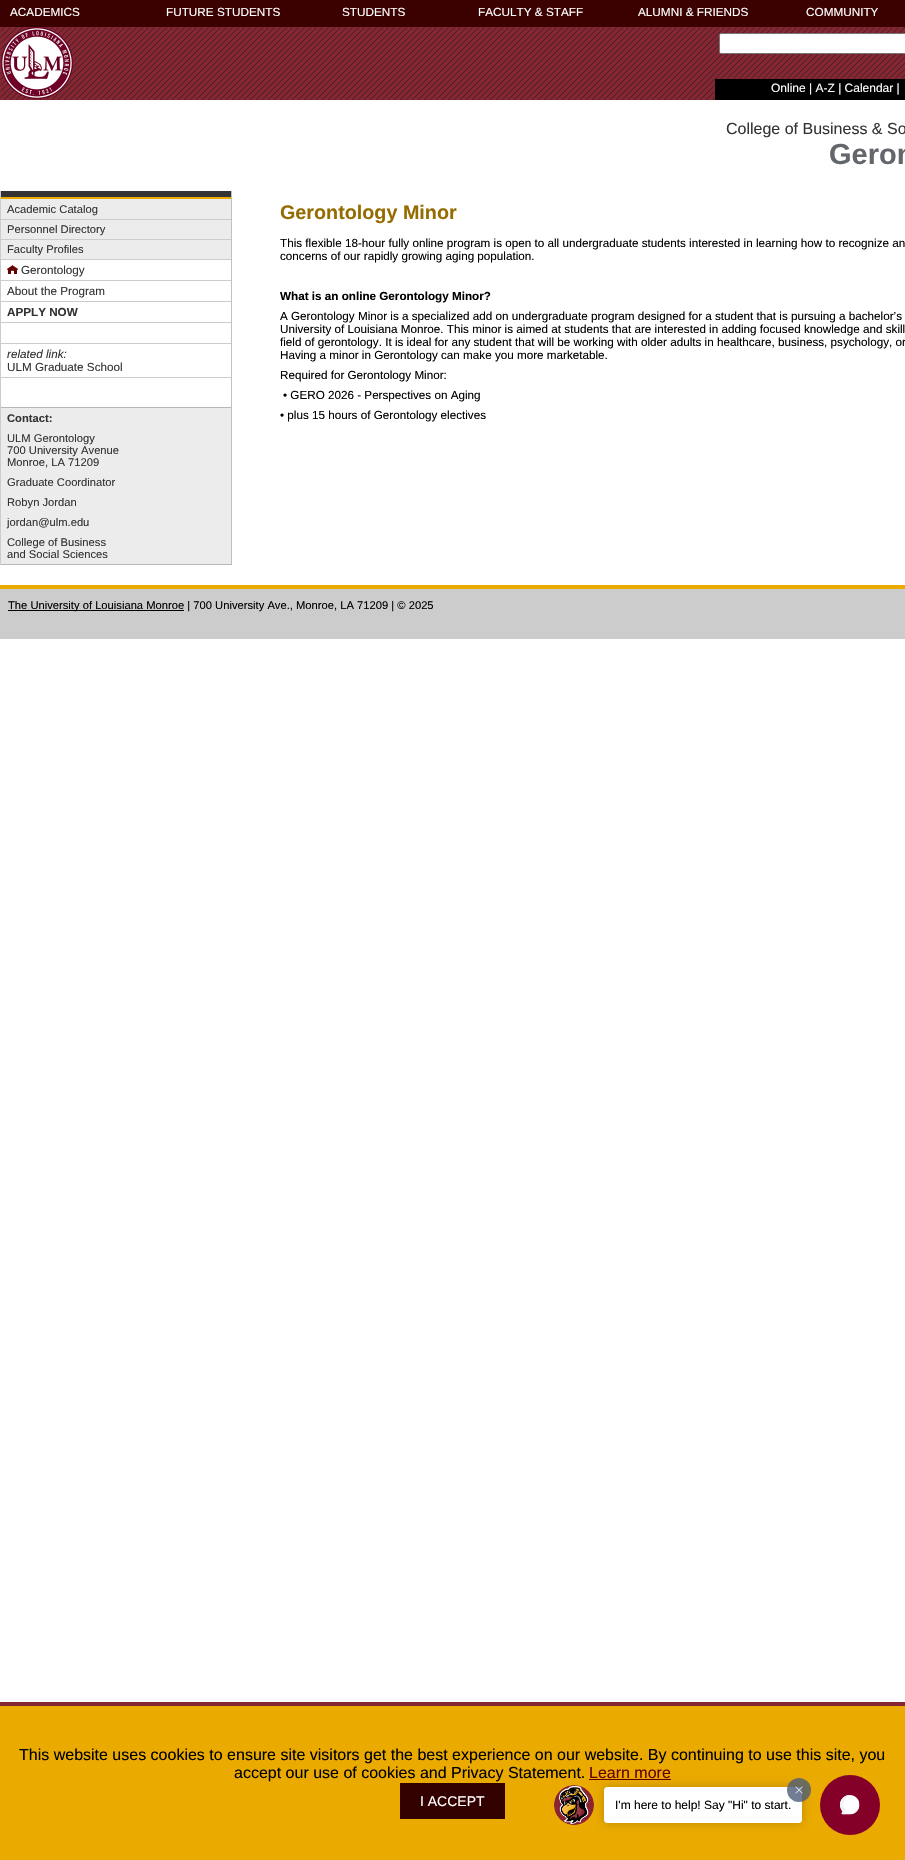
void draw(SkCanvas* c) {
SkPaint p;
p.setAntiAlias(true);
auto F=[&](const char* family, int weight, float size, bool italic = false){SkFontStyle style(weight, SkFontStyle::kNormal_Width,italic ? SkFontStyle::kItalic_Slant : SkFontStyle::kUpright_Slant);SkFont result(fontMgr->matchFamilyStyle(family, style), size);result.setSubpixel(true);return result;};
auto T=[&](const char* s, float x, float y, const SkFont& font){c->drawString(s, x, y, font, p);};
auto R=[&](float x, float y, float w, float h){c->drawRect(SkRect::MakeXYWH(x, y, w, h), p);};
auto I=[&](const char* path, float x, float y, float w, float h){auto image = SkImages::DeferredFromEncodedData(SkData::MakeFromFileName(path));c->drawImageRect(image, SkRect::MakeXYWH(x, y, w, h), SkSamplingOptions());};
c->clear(0xffffffff);
p.setColor(0xff3b0000);
R(0,0,905,27);
auto f1 = F("Liberation Sans",400,11.75);
p.setColor(0xffffffff);
T("ACADEMICS",10,16,f1);
T("FUTURE STUDENTS",166,16,f1);
T("STUDENTS",342,16,f1);
T("FACULTY & STAFF",478,16,f1);
T("ALUMNI & FRIENDS",638,16,f1);
T("COMMUNITY",806,16,f1);
p.setColor(0xff862633);
R(0,27,905,73);
I("1.png",0,27,905,73);
I("2.png",1,27,72,72);
p.setColor(0xffffffff);
c->drawRoundRect(SkRect::MakeXYWH(719.5,33.5,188,20),1.5,1.5,p);
p.setStroke(true);
p.setStrokeWidth(1);
p.setColor(0xff767676);
c->drawRoundRect(SkRect::MakeXYWH(719.5,33.5,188,20),1.5,1.5,p);
p.setStroke(false);
p.setColor(0xff000000);
R(715,79,190,21);
auto f2 = F("Liberation Sans",400,12);
p.setColor(0xffffffff);
T("Online | A-Z | Calendar |",771,92,f2);
auto f3 = F("Liberation Sans",400,16);
p.setColor(0xff333333);
T("College of Business & So",726,134,f3);
auto f4 = F("Liberation Sans",700,29);
p.setColor(0xff63666a);
T("Geron",829,164,f4);
p.setColor(0xff333333);
R(0,191,232,6);
p.setColor(0xffc0c0c0);
R(231,191,1,374);
p.setColor(0xffb7b7b7);
R(0,564,232,1);
p.setColor(0xffcccccc);
R(0,191,1,374);
p.setColor(0xffececec);
R(1,199,230,60);
p.setColor(0xffeaaa00);
R(1,197,230,2);
p.setColor(0xffcccccc);
R(1,219,230,1);
auto f5 = F("Liberation Sans",400,11.2);
p.setColor(0xff333333);
T("Academic Catalog",7,213,f5);
p.setColor(0xffcccccc);
R(1,239,230,1);
p.setColor(0xff333333);
T("Personnel Directory",7,233,f5);
p.setColor(0xffcccccc);
R(1,259,230,1);
p.setColor(0xff333333);
T("Faculty Profiles",7,253,f5);
p.setColor(0xffcccccc);
R(1,280,230,1);
I("3.png",7,265,11,9);
auto f6 = F("Liberation Sans",400,11.68);
p.setColor(0xff333333);
T("Gerontology",21,274,f6);
p.setColor(0xffcccccc);
R(1,301,230,1);
p.setColor(0xff333333);
T("About the Program",7,295,f6);
p.setColor(0xffcccccc);
R(1,322,230,1);
auto f7 = F("Liberation Sans",700,11.68);
p.setColor(0xff333333);
T("APPLY NOW",7,316,f7);
p.setColor(0xffcccccc);
R(1,343,230,1);
R(1,377,230,1);
auto f8 = F("Liberation Sans",400,11.68,true);
p.setColor(0xff333333);
T("related link:",7,358,f8);
T("ULM Graduate School",7,371,f6);
p.setColor(0xffececec);
R(1,408,230,156);
p.setColor(0xffb7b7b7);
R(1,407,230,1);
auto f9 = F("Liberation Sans",700,11.2);
p.setColor(0xff333333);
T("Contact:",7,422,f9);
T("ULM Gerontology",7,442,f5);
T("700 University Avenue",7,454,f5);
T("Monroe, LA 71209",7,466,f5);
T("Graduate Coordinator",7,486,f5);
T("Robyn Jordan",7,506,f5);
T("jordan@ulm.edu",7,526,f5);
T("College of Business",7,546,f5);
T("and Social Sciences",7,558,f5);
auto f10 = F("Liberation Sans",700,19.75);
p.setColor(0xff946c00);
T("Gerontology Minor",280,219,f10);
p.setColor(0xff000000);
T("This flexible 18-hour fully online program is open to all undergraduate students interested in learning how to recognize an",280,247,f6);
T("concerns of our rapidly growing aging population.",280,260,f6);
T("What is an online Gerontology Minor?",280,300,f7);
T("A Gerontology Minor is a specialized add on undergraduate program designed for a student that is pursuing a bachelor’s",280,320,f6);
T("University of Louisiana Monroe. This minor is aimed at students that are interested in adding focused knowledge and skill",280,333,f6);
T("field of gerontology. It is ideal for any student that will be working with older adults in healthcare, business, psychology, or",280,346,f6);
T("Having a minor in Gerontology can make you more marketable.",280,359,f6);
T("Required for Gerontology Minor:",280,379,f6);
T("• GERO 2026 - Perspectives on Aging",283,399,f6);
T("• plus 15 hours of Gerontology electives",280,419,f6);
p.setColor(0xffcccccc);
R(0,589,905,50);
p.setColor(0xffeaaa00);
R(0,585,905,4);
p.setColor(0xff000000);
R(8,610,176,1);
T("The University of Louisiana Monroe | 700 University Ave., Monroe, LA 71209 | © 2025",8,609,f5);
p.setColor(0xffeaaa00);
R(0,1706,905,154);
p.setColor(0xff862633);
R(0,1702,905,4);
p.setColor(0xff000000);
T("This website uses cookies to ensure site visitors get the best experience on our website. By continuing to use this site, you",19,1760,f3);
T("accept our use of cookies and Privacy Statement.",234,1778,f3);
p.setColor(0xff660000);
T("Learn more",589,1778,f3);
R(589,1779,82,1);
p.setColor(0xff330000);
R(400,1783,105,36);
auto f11 = F("Liberation Sans",400,14);
p.setColor(0xffffffff);
T("I ACCEPT",420,1806,f11);
I("4.png",554,1785,40,40);
p.setColor(0x33000000);
p.setMaskFilter(SkMaskFilter::MakeBlur(kNormal_SkBlurStyle, 5));
c->drawRoundRect(SkRect::MakeXYWH(604,1787,198,36),3,3,p);
p.setMaskFilter(nullptr);
p.setColor(0xffffffff);
c->drawRoundRect(SkRect::MakeXYWH(604.5,1787.5,197,35),2.5,2.5,p);
p.setStroke(true);
c->drawRoundRect(SkRect::MakeXYWH(604.5,1787.5,197,35),2.5,2.5,p);
p.setStroke(false);
p.setColor(0xff000000);
T("I'm here to help! Say \"Hi\" to start.",615,1809,f2);
p.setColor(0xcc4e5d77);
c->drawCircle(799,1790,12,p);
I("5.png",795,1786,8,8);
p.setColor(0xff840029);
c->drawCircle(850,1805,30,p);
I("6.png",840,1795,20,20);
}
